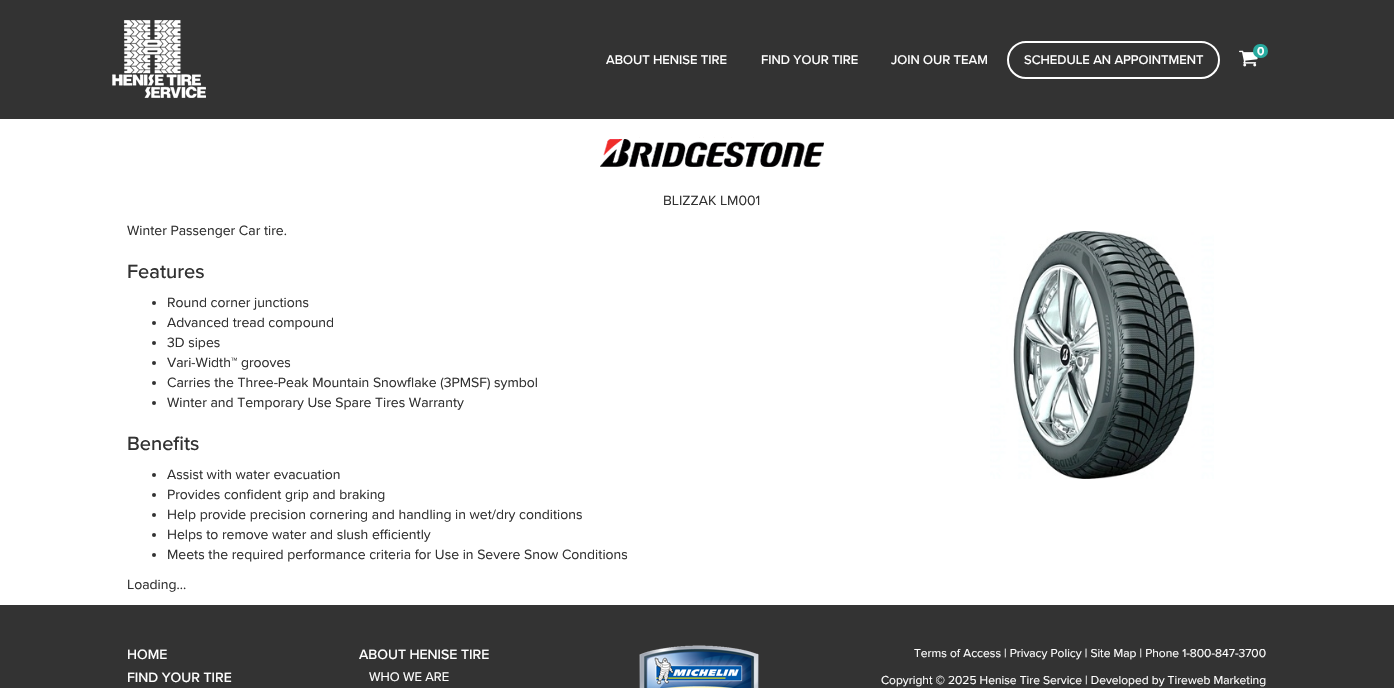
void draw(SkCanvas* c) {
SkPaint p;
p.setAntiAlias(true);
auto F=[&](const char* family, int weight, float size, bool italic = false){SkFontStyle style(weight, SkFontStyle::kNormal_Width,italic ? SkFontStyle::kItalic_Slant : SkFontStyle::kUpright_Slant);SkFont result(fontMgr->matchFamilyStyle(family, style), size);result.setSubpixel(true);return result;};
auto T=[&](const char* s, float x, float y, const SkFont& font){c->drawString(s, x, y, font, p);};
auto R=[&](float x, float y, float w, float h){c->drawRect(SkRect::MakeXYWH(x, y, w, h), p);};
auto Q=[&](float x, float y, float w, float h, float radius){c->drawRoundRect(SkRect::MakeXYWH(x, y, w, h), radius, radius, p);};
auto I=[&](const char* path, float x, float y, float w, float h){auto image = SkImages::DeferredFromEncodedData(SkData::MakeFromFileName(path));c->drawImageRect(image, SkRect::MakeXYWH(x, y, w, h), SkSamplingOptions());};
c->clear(0xffffffff);
p.setColor(0xff333333);
R(0,0,1394,119);
I("1.png",112,20,94,78);
I("2.png",1239,50,19,17);
p.setColor(0xff27aa9f);
Q(1253,44,15,14,7);
auto f1 = F("Proxima Nova",700,12);
p.setColor(0xffffffff);
T("0",1257,55,f1);
auto f2 = F("Proxima Nova",500,13);
T("ABOUT HENISE TIRE",606,64,f2);
T("FIND YOUR TIRE",761,64,f2);
T("JOIN OUR TEAM",891,64,f2);
p.setStroke(true);
p.setStrokeWidth(2);
c->drawRoundRect(SkRect::MakeXYWH(1008,42,211,36),18,18,p);
p.setStroke(false);
T("SCHEDULE AN APPOINTMENT",1024,64,f2);
I("3.png",600,137,224,30);
auto f3 = F("Proxima Nova",400,14);
p.setColor(0xff323232);
T("BLIZZAK LM001",663,205,f3);
T("Winter Passenger Car tire.",127,235,f3);
auto f4 = F("Proxima Nova",500,20);
T("Features",127,278,f4);
c->drawCircle(154,303,2,p);
T("Round corner junctions",167,307,f3);
c->drawCircle(154,323,2,p);
T("Advanced tread compound",167,327,f3);
c->drawCircle(154,343,2,p);
T("3D sipes",167,347,f3);
c->drawCircle(154,363,2,p);
T("Vari-Width™ grooves",167,367,f3);
c->drawCircle(154,383,2,p);
T("Carries the Three-Peak Mountain Snowflake (3PMSF) symbol",167,387,f3);
c->drawCircle(154,403,2,p);
T("Winter and Temporary Use Spare Tires Warranty",167,407,f3);
T("Benefits",127,450,f4);
c->drawCircle(154,475,2,p);
T("Assist with water evacuation",167,479,f3);
c->drawCircle(154,495,2,p);
T("Provides confident grip and braking",167,499,f3);
c->drawCircle(154,515,2,p);
T("Help provide precision cornering and handling in wet/dry conditions",167,519,f3);
c->drawCircle(154,535,2,p);
T("Helps to remove water and slush efficiently",167,539,f3);
c->drawCircle(154,555,2,p);
T("Meets the required performance criteria for Use in Severe Snow Conditions",167,559,f3);
T("Loading...",127,589,f3);
I("4.png",990,231,224,248);
p.setColor(0xff333333);
R(0,605,1394,83);
auto f5 = F("Proxima Nova",500,14);
p.setColor(0xffffffff);
T("HOME",127,659,f5);
T("FIND YOUR TIRE",127,682,f5);
T("ABOUT HENISE TIRE",359,659,f5);
auto f6 = F("Proxima Nova",400,13);
T("WHO WE ARE",369,681,f6);
I("5.png",639,645,120,43);
auto f7 = F("Proxima Nova",400,12);
T("Terms of Access | Privacy Policy | Site Map | Phone 1-800-847-3700",914,657,f7);
T("Copyright © 2025 Henise Tire Service | Developed by Tireweb Marketing",881,684,f7);
}
